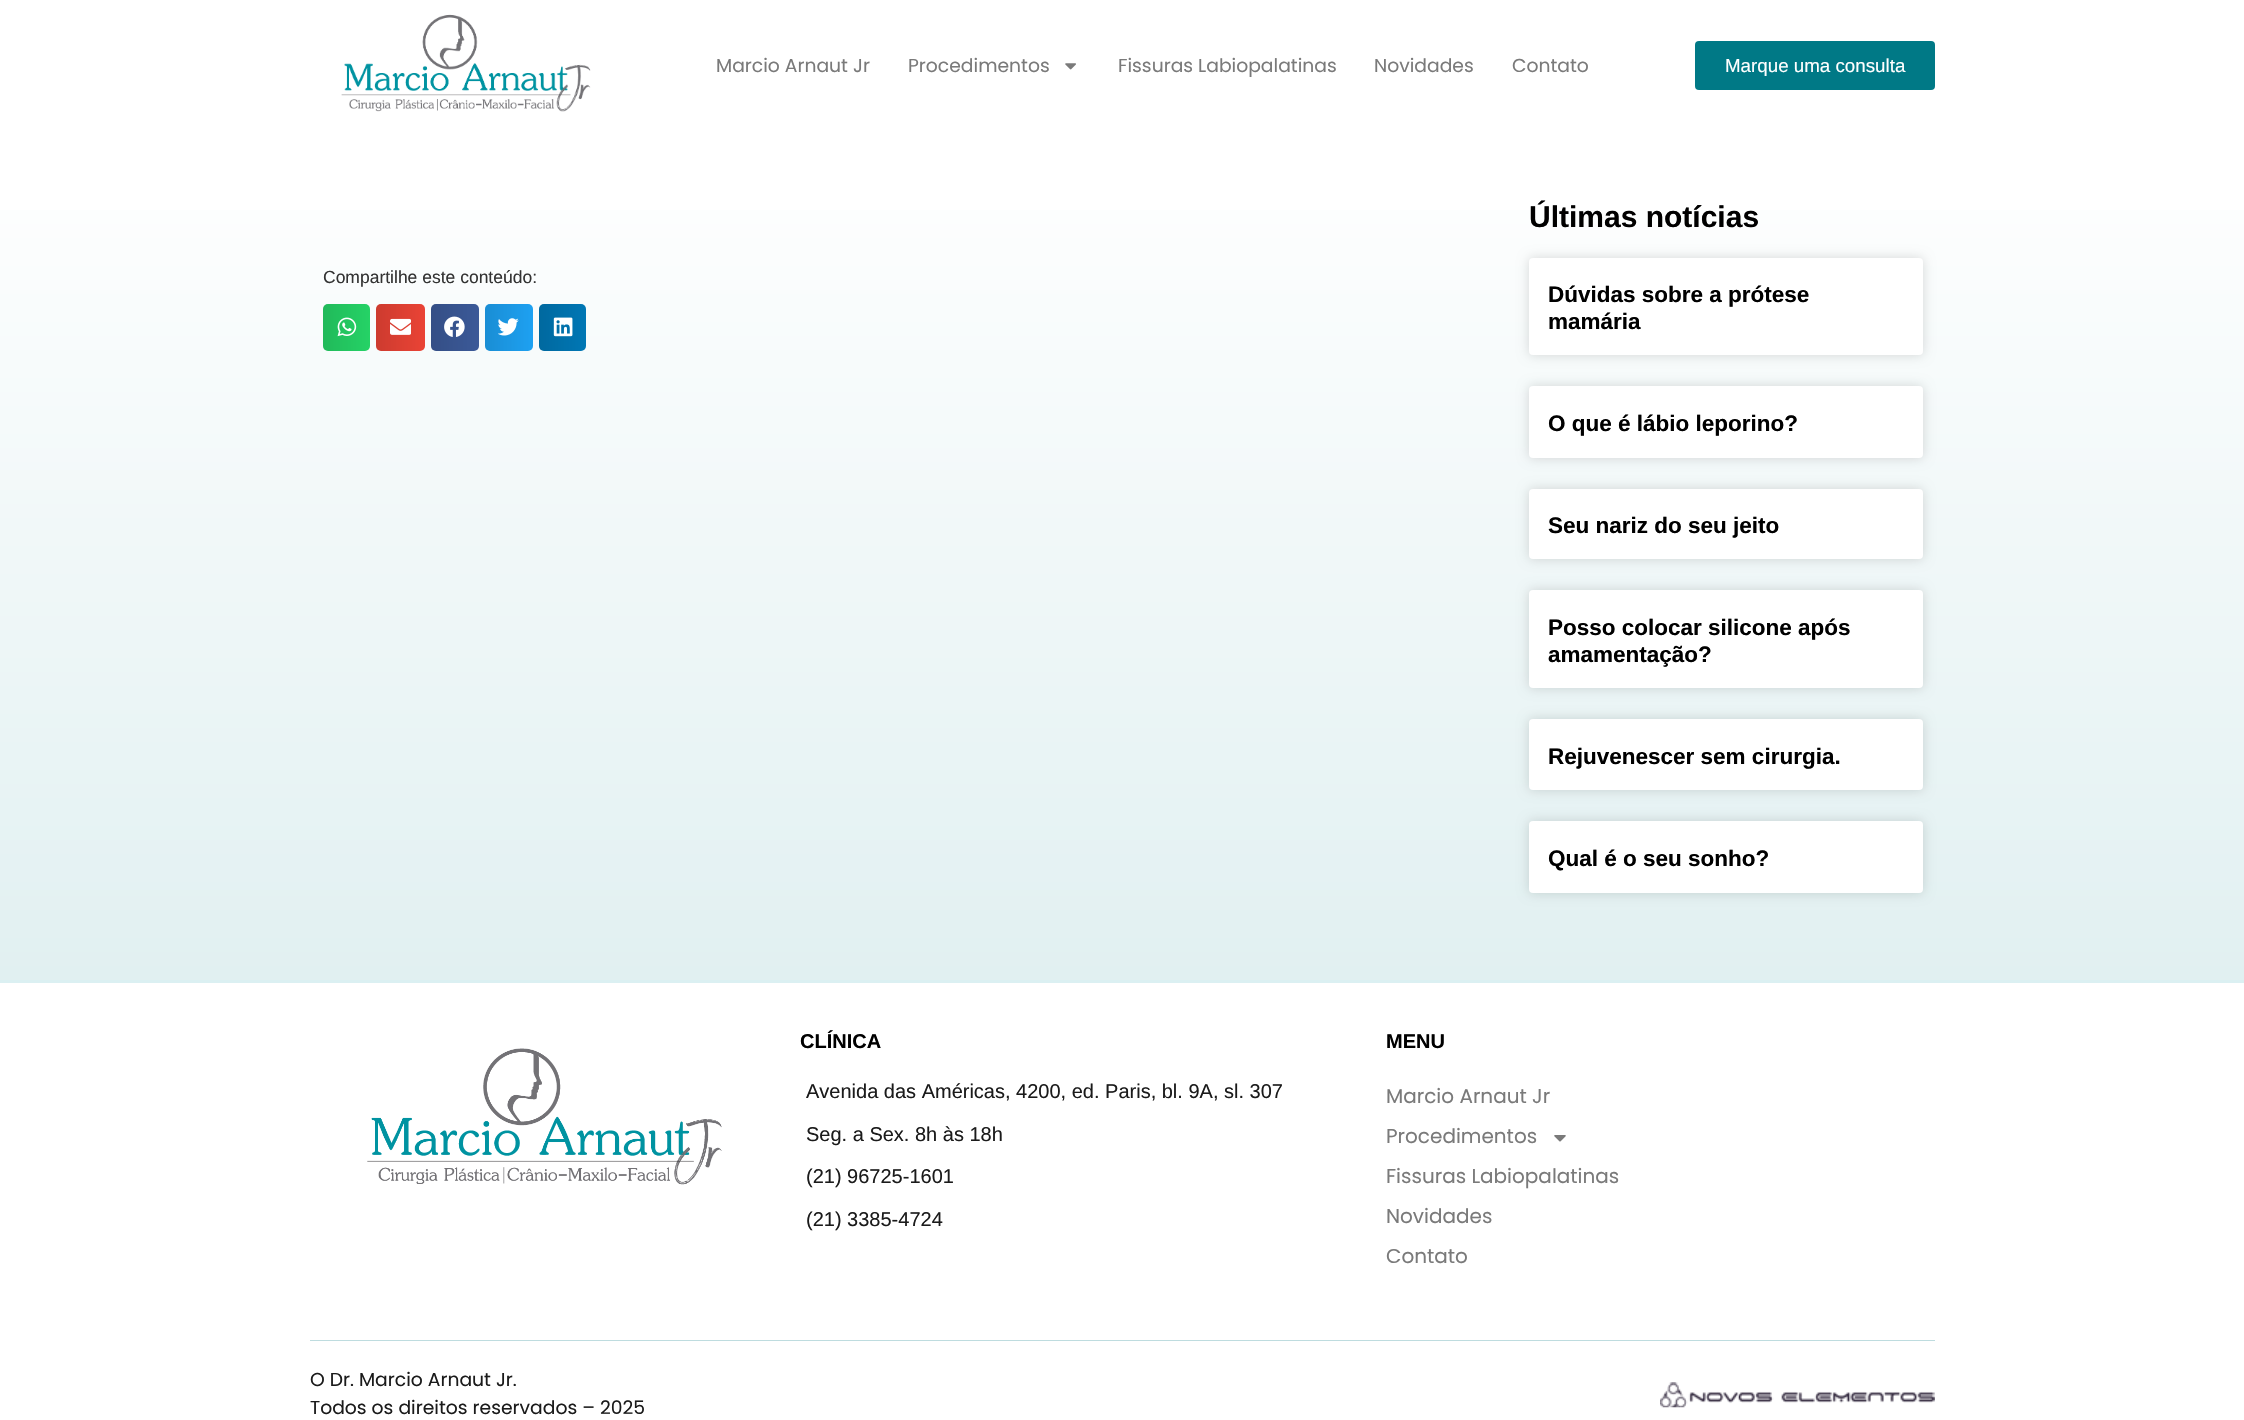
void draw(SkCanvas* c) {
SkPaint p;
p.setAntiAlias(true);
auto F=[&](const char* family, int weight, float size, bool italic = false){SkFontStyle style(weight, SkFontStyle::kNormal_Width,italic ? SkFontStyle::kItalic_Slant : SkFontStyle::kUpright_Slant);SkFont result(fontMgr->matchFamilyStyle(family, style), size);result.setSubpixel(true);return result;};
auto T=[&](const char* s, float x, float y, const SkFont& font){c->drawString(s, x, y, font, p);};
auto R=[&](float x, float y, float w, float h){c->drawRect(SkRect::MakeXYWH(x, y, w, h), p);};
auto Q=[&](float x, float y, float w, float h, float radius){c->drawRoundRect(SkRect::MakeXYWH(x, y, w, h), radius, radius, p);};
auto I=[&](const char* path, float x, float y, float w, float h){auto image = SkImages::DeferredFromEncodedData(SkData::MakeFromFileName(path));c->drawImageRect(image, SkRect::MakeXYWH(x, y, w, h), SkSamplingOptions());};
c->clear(0xffffffff);
I("1.png",341,14,250,98);
auto f1 = F("Poppins",400,18.75);
p.setColor(0xff7a7a7a);
T("Marcio Arnaut Jr",716,72,f1);
T("Procedimentos",908,72,f1);
I("2.png",1065,63,11,7);
T("Fissuras Labiopalatinas",1118,72,f1);
T("Novidades",1374,72,f1);
T("Contato",1512,72,f1);
p.setColor(0xff007986);
Q(1695,41,240,49,4);
auto f2 = F("Liberation Sans",400,18.75);
p.setColor(0xffffffff);
T("Marque uma consulta",1725,72,f2);
{
const SkColor colors[] = {0xffffffff,0xffe1f0f1};
const float stops[] = {0,1};
const SkPoint ends[] = {{1123,140}, {1123,980}};
p.setShader(SkGradientShader::MakeLinear(ends, colors, stops, 2, SkTileMode::kClamp));
p.setAlpha(255);
}
R(0,210,2244,770);
auto f3 = F("Liberation Sans",400,17.5);
p.setShader(nullptr);
p.setColor(0xff333333);
T("Compartilhe este conteúdo:",323,283,f3);
p.setColor(0xff25d366);
Q(323,304,47,47,5);
{
const SkColor colors[] = {0x1f000000,0x00000000};
const float stops[] = {0,1};
const SkPoint ends[] = {{323,328}, {370,328}};
p.setShader(SkGradientShader::MakeLinear(ends, colors, stops, 2, SkTileMode::kClamp));
p.setAlpha(255);
}
Q(323,304,47,47,5);
I("3.png",337,317,20,20);
p.setShader(nullptr);
p.setColor(0xffea4335);
Q(376,304,49,47,5);
{
const SkColor colors[] = {0x1f000000,0x00000000};
const float stops[] = {0,1};
const SkPoint ends[] = {{376,328}, {425,328}};
p.setShader(SkGradientShader::MakeLinear(ends, colors, stops, 2, SkTileMode::kClamp));
p.setAlpha(255);
}
Q(376,304,49,47,5);
I("4.png",390,318,21,17);
p.setShader(nullptr);
p.setColor(0xff3b5998);
Q(431,304,48,47,5);
{
const SkColor colors[] = {0x1f000000,0x00000000};
const float stops[] = {0,1};
const SkPoint ends[] = {{431,328}, {479,328}};
p.setShader(SkGradientShader::MakeLinear(ends, colors, stops, 2, SkTileMode::kClamp));
p.setAlpha(255);
}
Q(431,304,48,47,5);
I("5.png",444,316,21,21);
p.setShader(nullptr);
p.setColor(0xff1da1f2);
Q(485,304,48,47,5);
{
const SkColor colors[] = {0x1f000000,0x00000000};
const float stops[] = {0,1};
const SkPoint ends[] = {{485,328}, {533,328}};
p.setShader(SkGradientShader::MakeLinear(ends, colors, stops, 2, SkTileMode::kClamp));
p.setAlpha(255);
}
Q(485,304,48,47,5);
I("6.png",498,318,21,18);
p.setShader(nullptr);
p.setColor(0xff0077b5);
Q(539,304,47,47,5);
{
const SkColor colors[] = {0x1f000000,0x00000000};
const float stops[] = {0,1};
const SkPoint ends[] = {{539,328}, {586,328}};
p.setShader(SkGradientShader::MakeLinear(ends, colors, stops, 2, SkTileMode::kClamp));
p.setAlpha(255);
}
Q(539,304,47,47,5);
I("7.png",553,317,20,20);
auto f4 = F("Liberation Sans",700,30);
p.setShader(nullptr);
p.setColor(0xff000000);
T("Últimas notícias",1529,227,f4);
p.setColor(0x26000000);
p.setMaskFilter(SkMaskFilter::MakeBlur(kNormal_SkBlurStyle, 6));
c->drawRoundRect(SkRect::MakeXYWH(1529,258,394,97),4,4,p);
p.setMaskFilter(nullptr);
p.setColor(0xffffffff);
Q(1529,258,394,97,4);
auto f5 = F("Liberation Sans",700,22.5);
p.setColor(0xff000000);
T("Dúvidas sobre a prótese",1548,302,f5);
T("mamária",1548,329,f5);
p.setColor(0x26000000);
p.setMaskFilter(SkMaskFilter::MakeBlur(kNormal_SkBlurStyle, 6));
c->drawRoundRect(SkRect::MakeXYWH(1529,386,394,72),4,4,p);
p.setMaskFilter(nullptr);
p.setColor(0xffffffff);
Q(1529,386,394,72,4);
p.setColor(0xff000000);
T("O que é lábio leporino?",1548,431,f5);
p.setColor(0x26000000);
p.setMaskFilter(SkMaskFilter::MakeBlur(kNormal_SkBlurStyle, 6));
c->drawRoundRect(SkRect::MakeXYWH(1529,489,394,70),4,4,p);
p.setMaskFilter(nullptr);
p.setColor(0xffffffff);
Q(1529,489,394,70,4);
p.setColor(0xff000000);
T("Seu nariz do seu jeito",1548,533,f5);
p.setColor(0x26000000);
p.setMaskFilter(SkMaskFilter::MakeBlur(kNormal_SkBlurStyle, 6));
c->drawRoundRect(SkRect::MakeXYWH(1529,590,394,98),4,4,p);
p.setMaskFilter(nullptr);
p.setColor(0xffffffff);
Q(1529,590,394,98,4);
p.setColor(0xff000000);
T("Posso colocar silicone após",1548,635,f5);
T("amamentação?",1548,662,f5);
p.setColor(0x26000000);
p.setMaskFilter(SkMaskFilter::MakeBlur(kNormal_SkBlurStyle, 6));
c->drawRoundRect(SkRect::MakeXYWH(1529,719,394,71),4,4,p);
p.setMaskFilter(nullptr);
p.setColor(0xffffffff);
Q(1529,719,394,71,4);
p.setColor(0xff000000);
T("Rejuvenescer sem cirurgia.",1548,764,f5);
p.setColor(0x26000000);
p.setMaskFilter(SkMaskFilter::MakeBlur(kNormal_SkBlurStyle, 6));
c->drawRoundRect(SkRect::MakeXYWH(1529,821,394,72),4,4,p);
p.setMaskFilter(nullptr);
p.setColor(0xffffffff);
Q(1529,821,394,72,4);
p.setColor(0xff000000);
T("Qual é o seu sonho?",1548,866,f5);
p.setColor(0xffdbf0f2);
R(0,980,2244,3);
I("8.png",367,1048,355,137);
auto f6 = F("Liberation Sans",700,20);
p.setColor(0xff000000);
T("CLÍNICA",800,1048,f6);
auto f7 = F("Liberation Sans",400,20);
p.setColor(0xff1b1b1b);
T("Avenida das Américas, 4200, ed. Paris, bl. 9A, sl. 307",806,1098,f7);
T("Seg. a Sex. 8h às 18h",806,1141,f7);
T("(21) 96725-1601",806,1183,f7);
T("(21) 3385-4724",806,1226,f7);
p.setColor(0xff000000);
T("MENU",1386,1048,f6);
auto f8 = F("Poppins",400,20);
p.setColor(0xff7a7a7a);
T("Marcio Arnaut Jr",1386,1103,f8);
T("Procedimentos",1386,1143,f8);
I("9.png",1554,1135,12,7);
T("Fissuras Labiopalatinas",1386,1183,f8);
T("Novidades",1386,1223,f8);
T("Contato",1386,1263,f8);
p.setColor(0xffbedcdf);
R(310,1340,1625,1);
p.setColor(0xff1b1b1b);
T("O Dr. Marcio Arnaut Jr.",310,1386,f1);
T("Todos os direitos reservados – 2025",310,1414,f1);
I("10.png",1660,1382,275,26);
}
